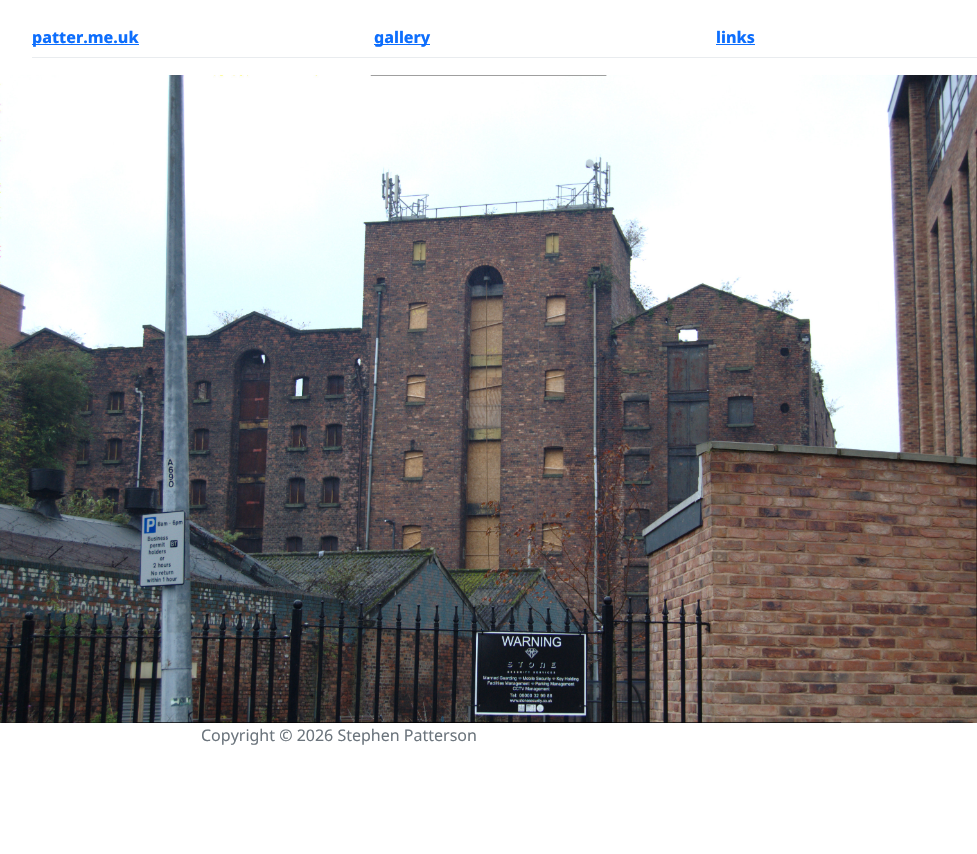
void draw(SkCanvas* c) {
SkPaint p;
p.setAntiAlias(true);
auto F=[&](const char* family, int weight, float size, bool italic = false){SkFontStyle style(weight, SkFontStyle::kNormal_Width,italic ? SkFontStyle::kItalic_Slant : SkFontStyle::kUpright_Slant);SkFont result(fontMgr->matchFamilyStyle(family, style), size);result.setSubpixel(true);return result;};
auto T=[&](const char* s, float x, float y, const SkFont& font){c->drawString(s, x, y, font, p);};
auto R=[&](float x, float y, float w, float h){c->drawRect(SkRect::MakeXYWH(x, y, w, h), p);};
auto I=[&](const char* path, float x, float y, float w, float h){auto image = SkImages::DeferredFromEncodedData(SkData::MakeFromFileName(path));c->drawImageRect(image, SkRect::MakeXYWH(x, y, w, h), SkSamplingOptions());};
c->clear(0xffffffff);
p.setColor(0xffe9ecef);
R(32,57,945,1);
p.setColor(0xff0d6efd);
R(32,44,107,1);
auto f1 = F("Noto Sans",800,16);
T("patter.me.uk",32,43,f1);
R(374,44,56,1);
T("gallery",374,43,f1);
T("links",716,43,f1);
R(716,44,39,1);
I("1.png",0,75,977,648);
auto f2 = F("Noto Sans",400,16);
p.setColor(0xff6c757d);
T("Copyright © 2026 Stephen Patterson",201,741,f2);
}
